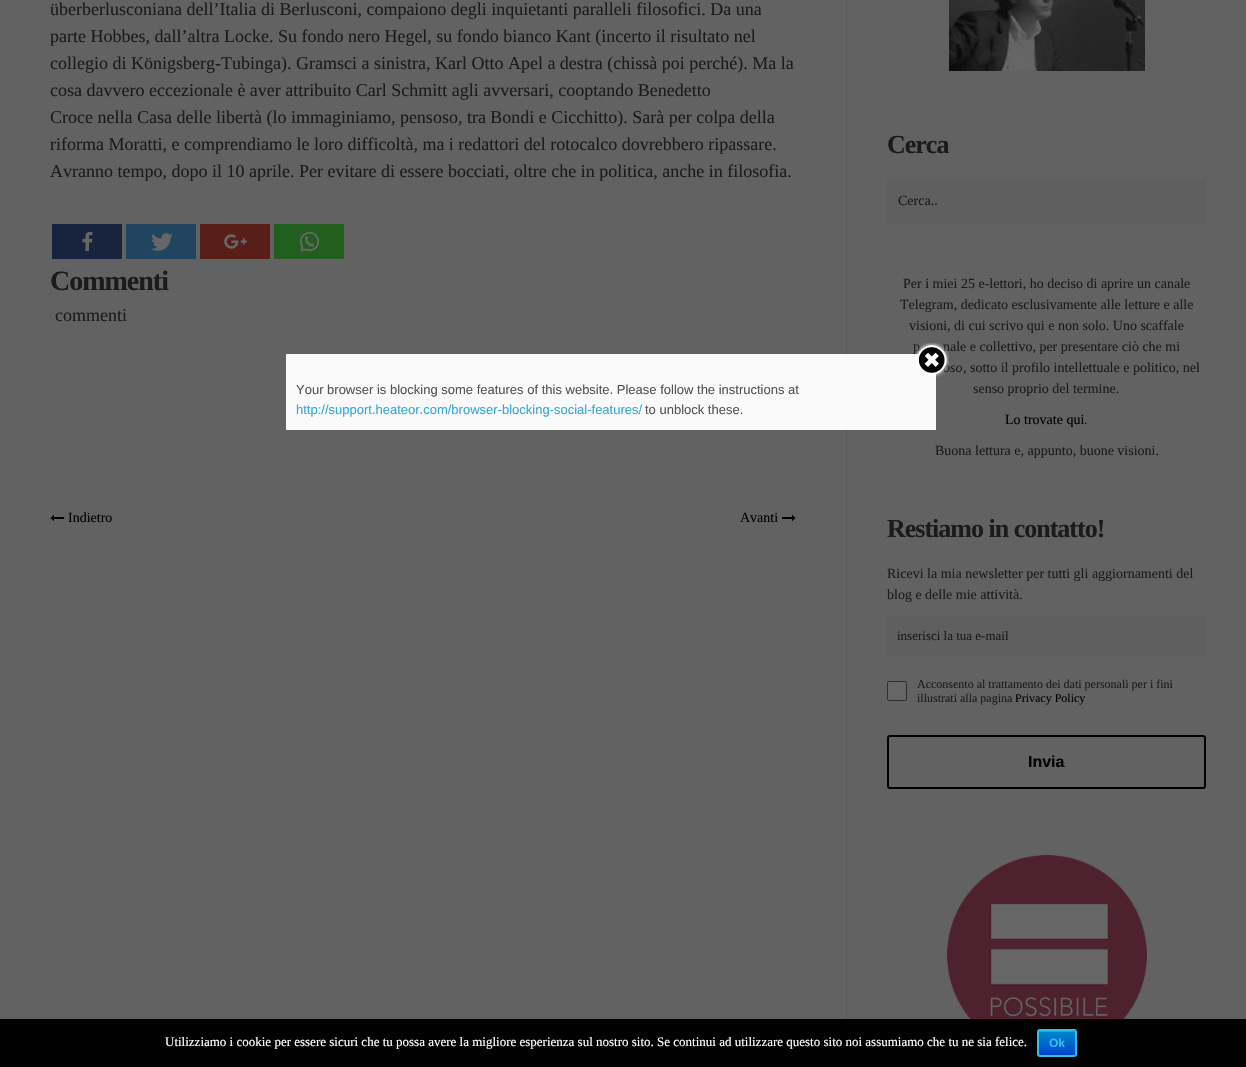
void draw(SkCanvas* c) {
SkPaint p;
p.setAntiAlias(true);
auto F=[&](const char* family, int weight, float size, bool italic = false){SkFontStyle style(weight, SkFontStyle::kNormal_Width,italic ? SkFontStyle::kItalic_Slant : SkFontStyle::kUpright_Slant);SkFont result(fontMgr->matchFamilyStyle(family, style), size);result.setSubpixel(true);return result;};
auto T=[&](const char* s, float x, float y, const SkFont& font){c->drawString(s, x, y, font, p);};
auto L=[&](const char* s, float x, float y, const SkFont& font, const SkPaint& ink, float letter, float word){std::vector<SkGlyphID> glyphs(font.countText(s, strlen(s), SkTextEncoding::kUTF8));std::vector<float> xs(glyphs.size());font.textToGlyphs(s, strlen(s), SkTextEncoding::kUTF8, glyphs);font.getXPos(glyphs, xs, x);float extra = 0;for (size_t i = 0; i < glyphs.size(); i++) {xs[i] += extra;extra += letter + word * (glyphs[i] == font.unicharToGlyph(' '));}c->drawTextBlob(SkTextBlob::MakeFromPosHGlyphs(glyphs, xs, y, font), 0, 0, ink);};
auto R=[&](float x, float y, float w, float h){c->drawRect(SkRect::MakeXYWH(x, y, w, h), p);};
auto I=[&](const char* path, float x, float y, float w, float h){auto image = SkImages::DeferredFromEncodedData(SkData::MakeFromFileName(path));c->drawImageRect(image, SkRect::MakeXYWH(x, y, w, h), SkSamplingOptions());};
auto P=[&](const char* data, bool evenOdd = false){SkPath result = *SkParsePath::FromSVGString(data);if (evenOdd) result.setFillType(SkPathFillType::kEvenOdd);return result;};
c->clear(0xff626262);
auto f1 = F("Liberation Serif",400,18);
p.setColor(0xff1a1b1b);
T("überberlusconiana dell’Italia di Berlusconi, compaiono degli inquietanti paralleli filosofici. Da una",50,15,f1);
T("parte Hobbes, dall’altra Locke. Su fondo nero Hegel, su fondo bianco Kant (incerto il risultato nel",50,42,f1);
T("collegio di Königsberg-Tubinga). Gramsci a sinistra, Karl Otto Apel a destra (chissà poi perché). Ma la",50,69,f1);
T("cosa davvero eccezionale è aver attribuito Carl Schmitt agli avversari, cooptando Benedetto",50,96,f1);
T("Croce nella Casa delle libertà (lo immaginiamo, pensoso, tra Bondi e Cicchitto). Sarà per colpa della",50,123,f1);
T("riforma Moratti, e comprendiamo le loro difficoltà, ma i redattori del rotocalco dovrebbero ripassare.",50,150,f1);
T("Avranno tempo, dopo il 10 aprile. Per evitare di essere bocciati, oltre che in politica, anche in filosofia.",50,177,f1);
p.setColor(0xff18233e);
R(52,224,70,35);
I("1.png",82,231,11,21);
p.setColor(0xff22455f);
R(126,224,70,35);
I("2.png",151,233,22,18);
p.setColor(0xff581e17);
R(200,224,70,35);
I("3.png",224,234,23,15);
p.setColor(0xff225e1e);
R(274,224,70,35);
I("4.png",299,231,21,21);
auto f2 = F("Liberation Serif",700,28);
p.setColor(0xff1a1b1b);
L("Commenti",50,290,f2,p,-1,0);
T("commenti",55,321,f1);
I("5.png",50,515,14,6);
auto f3 = F("Liberation Serif",400,14);
p.setColor(0xff000000);
T("Indietro",68,522,f3);
T("Avanti",740,522,f3);
I("6.png",782,515,14,6);
p.setColor(0xff585858);
R(846,0,1,1019);
I("7.png",949,0,196,71);
auto f4 = F("Liberation Serif",700,26);
p.setColor(0xff1a1b1b);
L("Cerca",887,153,f4,p,-1,0);
p.setColor(0xff5f5f5f);
R(887,179,319,44);
p.setColor(0xff1a1b1b);
T("Cerca..",898,205,f3);
T("Per i miei 25 e-lettori, ho deciso di aprire un canale",903,288,f3);
T("Telegram, dedicato esclusivamente alle letture e alle",900,309,f3);
T("visioni, di cui scrivo qui e non solo. Uno scaffale",909,330,f3);
T("p",913,351,f3);
T("nale e collettivo, per presentare ciò che mi",943,351,f3);
auto f5 = F("Liberation Serif",400,14,true);
T("oso",943,372,f5);
T(", sotto il profilo intellettuale e politico, nel",963,372,f3);
T("senso proprio del termine.",973,393,f3);
p.setColor(0xff000000);
T("Lo trovate qui",1005,424,f3);
p.setColor(0xff1a1b1b);
T(".",1084,424,f3);
T("Buona lettura e, appunto, buone visioni.",935,455,f3);
L("Restiamo in contatto!",887,537,f4,p,-1,0);
T("Ricevi la mia newsletter per tutti gli aggiornamenti del",887,578,f3);
T("blog e delle mie attività.",887,599,f3);
p.setColor(0xff5f5f5f);
R(887,615,319,42);
auto f6 = F("Liberation Serif",400,13);
p.setColor(0xff1a1b1b);
T("inserisci la tua e-mail",897,640,f6);
p.setColor(0xff666666);
c->drawRoundRect(SkRect::MakeXYWH(887.5,681.5,19,19),1.5,1.5,p);
p.setStroke(true);
p.setStrokeWidth(1);
p.setColor(0xff2f2f2f);
c->drawRoundRect(SkRect::MakeXYWH(887.5,681.5,19,19),1.5,1.5,p);
auto f7 = F("Liberation Serif",400,12);
p.setStroke(false);
p.setColor(0xff1a1b1b);
T("Acconsento al trattamento dei dati personali per i fini",917,688,f7);
T("illustrati alla pagina",917,702,f7);
p.setColor(0xff000000);
T("Privacy Policy",1015,702,f7);
p.setStroke(true);
p.setStrokeWidth(2);
c->drawRoundRect(SkRect::MakeXYWH(888,736,317,52),2,2,p);
auto f8 = F("Liberation Sans",700,16);
p.setStroke(false);
T("Invia",1028,767,f8);
I("8.png",947,855,200,164);
p.setColor(0xfffafafa);
R(286,354,650,76);
I("9.png",914,343,35,34);
auto f9 = F("Liberation Sans",400,13);
p.setColor(0xff555555);
T("Your browser is blocking some features of this website. Please follow the instructions at",296,394,f9);
p.setColor(0xff33a9d8);
T("http://support.heateor.com/browser-blocking-social-features/",296,414,f9);
p.setColor(0xff555555);
T("to unblock these.",645,414,f9);
p.setColor(0xff000000);
R(0,1019,1246,48);
p.setColor(0xffffffff);
T("Utilizziamo i cookie per essere sicuri che tu possa avere la migliore esperienza sul nostro sito. Se continui ad utilizzare questo sito noi assumiamo che tu ne sia felice.",165,1046,f6);
c->save();
c->clipPath(P("M1040 1029h34c1.5 0 3 1.5 3 3v22c0 1.5-1.5 3-3 3h-34c-1.5 0-3-1.5-3-3v-22c0-1.5 1.5-3 3-3z"),true);
{
const SkColor colors[] = {0xff0088cc,0xff0044cc};
const float stops[] = {0,1};
const SkPoint ends[] = {{1057,1031}, {1057,1055}};
p.setShader(SkGradientShader::MakeLinear(ends, colors, stops, 2, SkTileMode::kClamp));
p.setAlpha(255);
}
R(1037,1031,40,24);
c->restore();
p.setShader(nullptr);
p.setColor(0xff339fd6);
c->drawPath(P("M1040 1032h30.5c5-.5 4.5 0 4.5 5c0-7 1.5-6-6.5-6h-29c-.5 .5-.5 1.5-.5 2zm35 19v3.5zm-36 3.5v-1z",true),p);
p.setStroke(true);
p.setColor(0xff32bee6);
c->drawRoundRect(SkRect::MakeXYWH(1038,1030,38,26),2,2,p);
auto f10 = F("Liberation Sans",700,12);
p.setStroke(false);
T("Ok",1049,1047,f10);
}
